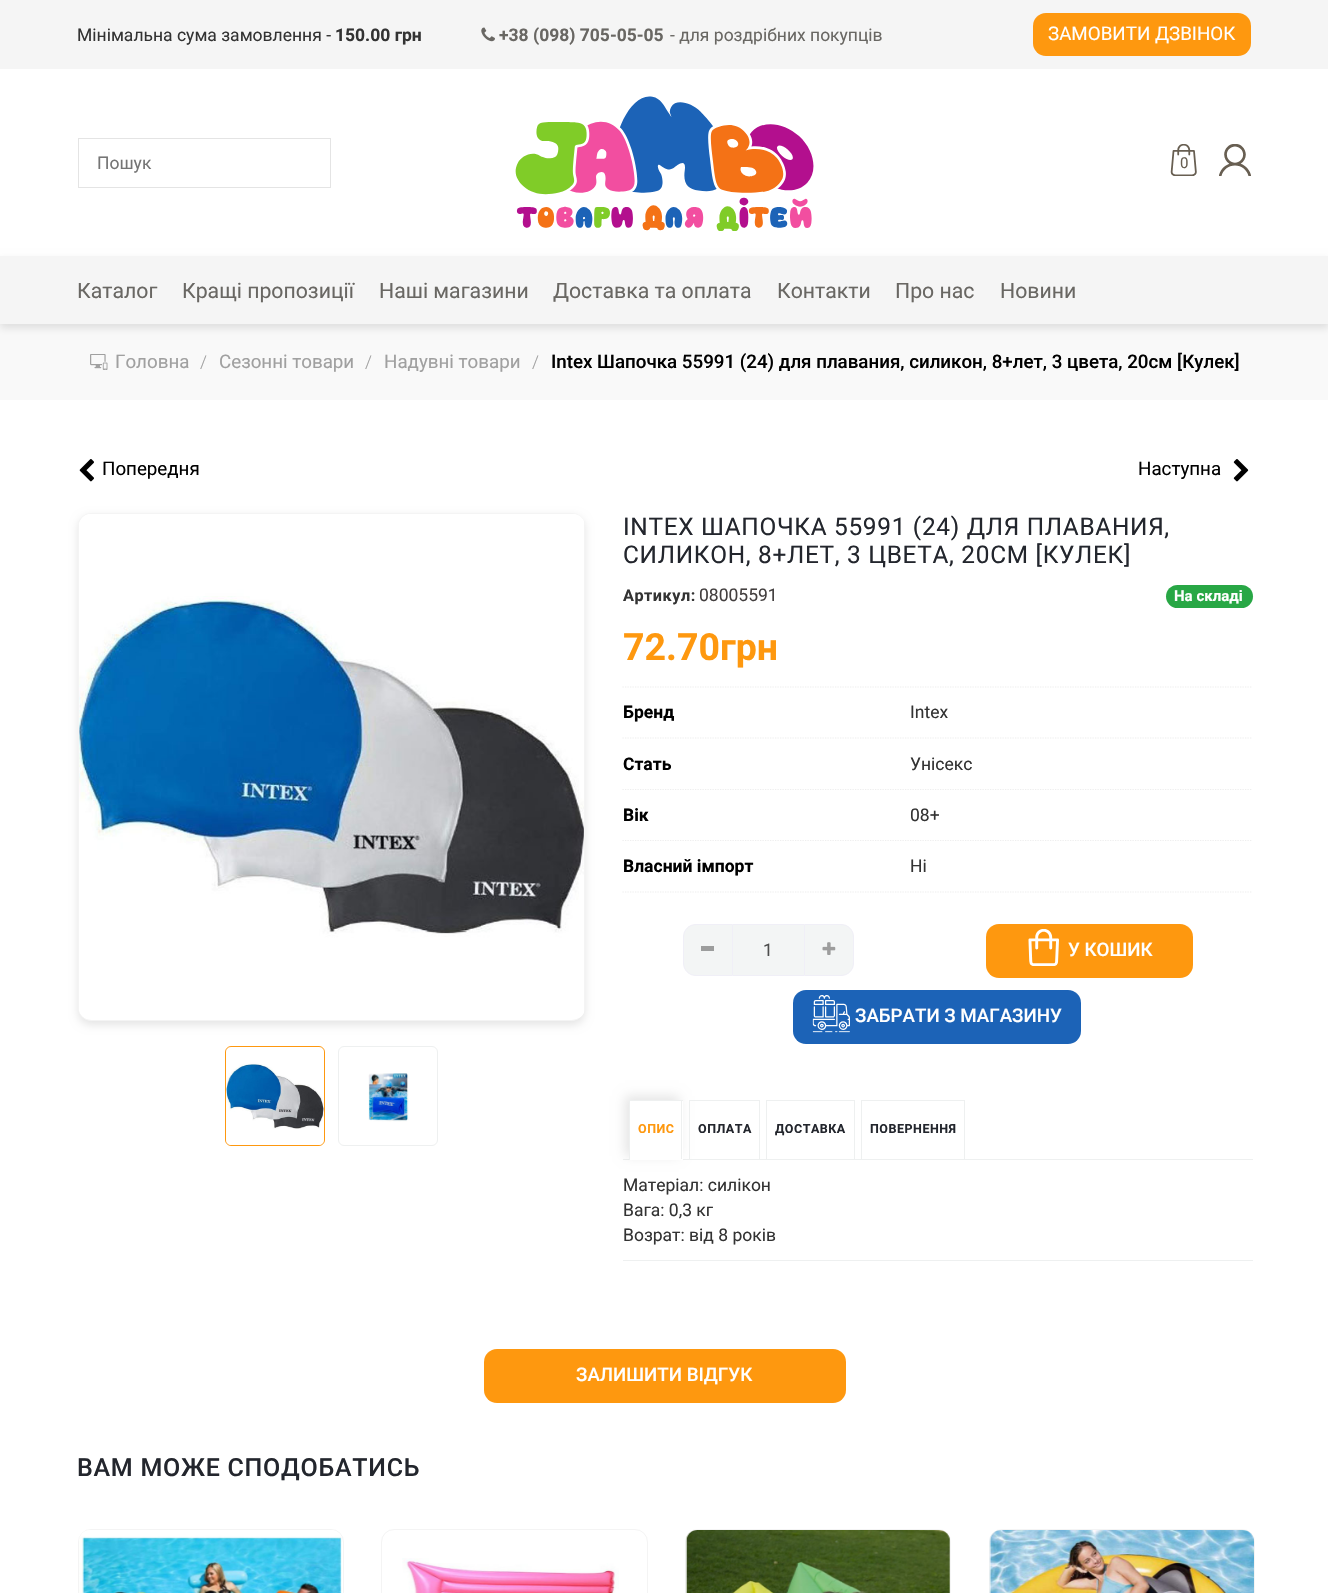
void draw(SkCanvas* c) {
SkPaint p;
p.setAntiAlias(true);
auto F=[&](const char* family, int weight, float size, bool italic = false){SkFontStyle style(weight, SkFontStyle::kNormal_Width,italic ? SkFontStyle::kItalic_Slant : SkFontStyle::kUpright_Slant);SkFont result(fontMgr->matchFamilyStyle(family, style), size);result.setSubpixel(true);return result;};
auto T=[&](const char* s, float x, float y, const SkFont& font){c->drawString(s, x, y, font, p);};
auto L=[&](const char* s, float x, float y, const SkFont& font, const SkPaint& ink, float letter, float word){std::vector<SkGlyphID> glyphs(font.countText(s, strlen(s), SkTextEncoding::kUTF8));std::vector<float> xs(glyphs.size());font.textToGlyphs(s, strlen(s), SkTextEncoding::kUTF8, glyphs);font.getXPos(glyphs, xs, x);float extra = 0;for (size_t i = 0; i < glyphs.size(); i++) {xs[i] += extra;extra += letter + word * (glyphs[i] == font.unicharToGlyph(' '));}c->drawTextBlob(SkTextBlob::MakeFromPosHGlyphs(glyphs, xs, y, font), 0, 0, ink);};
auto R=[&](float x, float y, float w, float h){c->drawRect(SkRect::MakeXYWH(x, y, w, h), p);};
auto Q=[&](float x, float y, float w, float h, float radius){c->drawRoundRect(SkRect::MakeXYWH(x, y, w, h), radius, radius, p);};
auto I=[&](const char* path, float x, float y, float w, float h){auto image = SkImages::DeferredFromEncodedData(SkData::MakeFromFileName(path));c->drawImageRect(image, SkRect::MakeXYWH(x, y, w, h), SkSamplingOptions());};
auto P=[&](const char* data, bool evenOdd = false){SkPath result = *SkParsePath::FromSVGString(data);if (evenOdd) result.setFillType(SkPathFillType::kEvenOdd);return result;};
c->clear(0xffffffff);
p.setColor(0xfff5f5f5);
R(0,0,1328,69);
auto f1 = F("Roboto",400,17.5);
p.setColor(0xff333333);
T("Мінімальна сума замовлення -",77,41,f1);
auto f2 = F("Roboto",700,17.5);
T("150.00 грн",335,41,f2);
I("1.png",481,27,14,15);
p.setColor(0xff696763);
T("+38 (098) 705-05-05",499,41,f2);
T("- для роздрібних покупців",670,41,f1);
p.setColor(0xfffe980f);
Q(1033,13,218,43,13);
auto f3 = F("Roboto",400,18.75);
p.setColor(0xffffffff);
T("ЗАМОВИТИ ДЗВІНОК",1048,40,f3);
p.setStroke(true);
p.setStrokeWidth(1);
p.setColor(0xffe4e4e4);
c->drawRect(SkRect::MakeXYWH(78.5,138.5,252,49),p);
p.setStroke(false);
p.setColor(0xff757575);
T("Пошук",97,169,f1);
I("2.png",515,96,299,135);
I("3.png",1170,144,27,32);
auto f4 = F("Roboto",400,15);
p.setColor(0xff685f52);
T("0",1180,168,f4);
I("4.png",1219,144,32,32);
p.setColor(0xfff9f9f9);
R(0,324,1328,76);
p.setColor(0x1c000000);
p.setMaskFilter(SkMaskFilter::MakeBlur(kNormal_SkBlurStyle, 4));
c->drawRect(SkRect::MakeXYWH(0,260,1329,68),p);
p.setMaskFilter(nullptr);
p.setColor(0xfff5f5f5);
R(0,256,1328,68);
auto f5 = F("Roboto",400,21.25);
p.setColor(0xff696763);
T("Каталог",77,298,f5);
T("Кращі пропозиції",182,298,f5);
T("Наші магазини",379,298,f5);
T("Доставка та оплата",553,298,f5);
T("Контакти",777,298,f5);
T("Про нас",895,298,f5);
T("Новини",1000,298,f5);
I("5.png",90,354,18,16);
p.setColor(0xffa0a0a0);
T("Головна",115,368,f3);
auto f6 = F("Roboto",300,17.5);
T("/",200,368,f6);
T("Сезонні товари",219,368,f3);
T("/",365,368,f6);
T("Надувні товари",384,368,f3);
T("/",532,368,f6);
auto f7 = F("Roboto",500,18.75);
p.setColor(0xff000000);
T("Intex Шапочка 55991 (24) для плавания, силикон, 8+лет, 3 цвета, 20см [Кулек]",551,368,f7);
I("6.png",79,459,15,23);
T("Попередня",102,475,f3);
T("Наступна",1138,475,f3);
I("7.png",1233,459,16,23);
p.setColor(0x1a000000);
p.setMaskFilter(SkMaskFilter::MakeBlur(kNormal_SkBlurStyle, 4));
c->drawRoundRect(SkRect::MakeXYWH(78,516,507,509),13,13,p);
p.setMaskFilter(nullptr);
p.setColor(0xffffffff);
c->drawRoundRect(SkRect::MakeXYWH(78.5,513.5,506,507),12.5,12.5,p);
p.setStroke(true);
p.setColor(0xfff4f4f4);
c->drawRoundRect(SkRect::MakeXYWH(78.5,513.5,506,507),12.5,12.5,p);
I("8.png",79,514,505,504);
p.setColor(0xfffe980f);
c->drawRoundRect(SkRect::MakeXYWH(225.5,1046.5,99,99),5.5,5.5,p);
I("9.png",226,1047,98,98);
p.setColor(0xffeef0f0);
c->drawRoundRect(SkRect::MakeXYWH(338.5,1046.5,99,99),5.5,5.5,p);
I("10.png",368,1073,41,49);
auto f8 = F("Roboto",400,24.4);
p.setStroke(false);
p.setColor(0xff23262d);
L("INTEX ШАПОЧКА 55991 (24) ДЛЯ ПЛАВАНИЯ,",623,535,f8,p,.7,0);
L("СИЛИКОН, 8+ЛЕТ, 3 ЦВЕТА, 20СМ [КУЛЕК]",623,563,f8,p,.7,0);
auto f9 = F("Roboto",700,16.25);
p.setColor(0xff333333);
L("Артикул:",623,601,f9,p,.5,0);
p.setColor(0xff433f3f);
T("08005591",699,601,f1);
p.setColor(0xff28a745);
Q(1166,585,87,23,11.5);
auto f10 = F("Roboto",700,15);
p.setColor(0xffffffff);
T("На складі",1174,601,f10);
auto f11 = F("Roboto",700,37.5);
p.setColor(0xfffe980f);
T("72.70грн",623,660,f11);
p.setStroke(true);
p.setStrokeWidth(1.2);
p.setColor(0xffeeeeee);
p.setPathEffect(SkDashPathEffect::Make({{1.25f,1.25f}}, 0));
c->drawPath(P("M622.5 687h630"),p);
p.setPathEffect(nullptr);
p.setStroke(false);
p.setColor(0xff000000);
T("Бренд",623,718,f2);
p.setColor(0xff333333);
T("Intex",910,718,f1);
p.setStroke(true);
p.setColor(0xffeeeeee);
p.setPathEffect(SkDashPathEffect::Make({{1.25f,1.25f}}, 0));
c->drawPath(P("M622.5 738h630"),p);
p.setPathEffect(nullptr);
p.setStroke(false);
p.setColor(0xff000000);
T("Стать",623,770,f2);
p.setColor(0xff333333);
T("Унісекс",910,770,f1);
p.setStroke(true);
p.setColor(0xffeeeeee);
p.setPathEffect(SkDashPathEffect::Make({{1.25f,1.25f}}, 0));
c->drawPath(P("M622.5 789.5h630"),p);
p.setPathEffect(nullptr);
p.setStroke(false);
p.setColor(0xff000000);
T("Вік",623,821,f2);
p.setColor(0xff333333);
T("08+",910,821,f1);
p.setStroke(true);
p.setColor(0xffeeeeee);
p.setPathEffect(SkDashPathEffect::Make({{1.25f,1.25f}}, 0));
c->drawPath(P("M622.5 840.5h630"),p);
p.setPathEffect(nullptr);
p.setPathEffect(SkDashPathEffect::Make({{1.25f,1.25f}}, 0));
c->drawPath(P("M622.5 892h630"),p);
p.setPathEffect(nullptr);
p.setStroke(false);
p.setColor(0xff000000);
T("Власний імпорт",623,872,f2);
p.setColor(0xff333333);
T("Ні",910,872,f1);
p.setColor(0xfff3f5f5);
c->drawPath(P("M696 924.5h36.5v51h-36.5c-7 0-12.5-5.5-12.5-12.5v-26c0-7 5.5-12.5 12.5-12.5z"),p);
p.setStroke(true);
p.setStrokeWidth(1);
p.setColor(0xfff0eff7);
c->drawPath(P("M696 924.5h36.5v51h-36.5c-7 0-12.5-5.5-12.5-12.5v-26c0-7 5.5-12.5 12.5-12.5z"),p);
p.setStroke(false);
p.setColor(0xff9c9d9d);
R(701,946,13,5);
p.setColor(0xfff3f5f5);
R(733,925,71,50);
p.setColor(0xfff0eff7);
R(733,924,71,1);
R(733,975,71,1);
p.setColor(0xff4d4d4d);
T("1",763,956,f1);
p.setColor(0xfff3f5f5);
c->drawPath(P("M804.5 924.5h36.5c7 0 12.5 5.5 12.5 12.5v26c0 7-5.5 12.5-12.5 12.5h-36.5z"),p);
p.setStroke(true);
p.setColor(0xfff0eff7);
c->drawPath(P("M804.5 924.5h36.5c7 0 12.5 5.5 12.5 12.5v26c0 7-5.5 12.5-12.5 12.5h-36.5z"),p);
I("11.png",822,942,14,13);
p.setStroke(false);
p.setColor(0xfffe980f);
Q(986,924,207,54,13);
I("12.png",1028,929,31,37);
p.setColor(0xffffffff);
T("У КОШИК",1068,956,f7);
p.setColor(0xff1c63b7);
Q(793,990,288,54,13);
I("13.png",812,995,38,38);
p.setColor(0xffffffff);
T("ЗАБРАТИ З МАГАЗИНУ",855,1022,f7);
p.setColor(0xffeef0f0);
R(623,1159,630,1);
p.setColor(0x1a000000);
p.setMaskFilter(SkMaskFilter::MakeBlur(kNormal_SkBlurStyle, 5.5));
c->drawRect(SkRect::MakeXYWH(625,1096,54,60),p);
p.setMaskFilter(nullptr);
p.setColor(0xffffffff);
R(630,1101,53,58);
p.setColor(0xffeef0f0);
R(629,1100,54,1);
R(681,1100,1,60);
p.setColor(0xffffffff);
R(629,1159,54,1);
p.setColor(0xffeef0f0);
R(629,1100,1,60);
auto f12 = F("Roboto",700,12.5);
p.setColor(0xfffe980f);
L("ОПИС",638,1133,f12,p,.5,0);
p.setStroke(true);
p.setColor(0xffeef0f0);
c->drawRect(SkRect::MakeXYWH(689.5,1100.5,70,59),p);
p.setStroke(false);
p.setColor(0xff23262d);
L("ОПЛАТА",698,1133,f12,p,.5,0);
p.setStroke(true);
p.setColor(0xffeef0f0);
c->drawRect(SkRect::MakeXYWH(766.5,1100.5,88,59),p);
p.setStroke(false);
p.setColor(0xff23262d);
L("ДОСТАВКА",775,1133,f12,p,.5,0);
p.setStroke(true);
p.setColor(0xffeef0f0);
c->drawRect(SkRect::MakeXYWH(861.5,1100.5,103,59),p);
p.setStroke(false);
p.setColor(0xff23262d);
L("ПОВЕРНЕННЯ",870,1133,f12,p,.5,0);
p.setColor(0xffeef0f0);
R(623,1260,630,1);
p.setColor(0xff333333);
T("Матеріал: силікон",623,1191,f1);
T("Вага: 0,3 кг",623,1216,f1);
T("Возрат: від 8 років",623,1241,f1);
p.setColor(0xfffe980f);
Q(484,1349,362,54,13);
p.setColor(0xffffffff);
T("ЗАЛИШИТИ ВІДГУК",576,1381,f7);
auto f13 = F("Roboto",500,25);
p.setColor(0xff23262d);
L("ВАМ МОЖЕ СПОДОБАТИСЬ",77,1476,f13,p,.75,0);
p.setStroke(true);
p.setColor(0xfff4f4f4);
c->drawRoundRect(SkRect::MakeXYWH(78.5,1529.5,265,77),12.5,12.5,p);
I("14.png",79,1530,263,63);
c->drawRoundRect(SkRect::MakeXYWH(381.5,1529.5,266,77),12.5,12.5,p);
I("15.png",402,1558,217,35);
c->drawRoundRect(SkRect::MakeXYWH(685.5,1529.5,265,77),12.5,12.5,p);
I("16.png",685,1530,265,63);
c->drawRoundRect(SkRect::MakeXYWH(989.5,1529.5,265,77),12.5,12.5,p);
I("17.png",989,1530,265,63);
}
